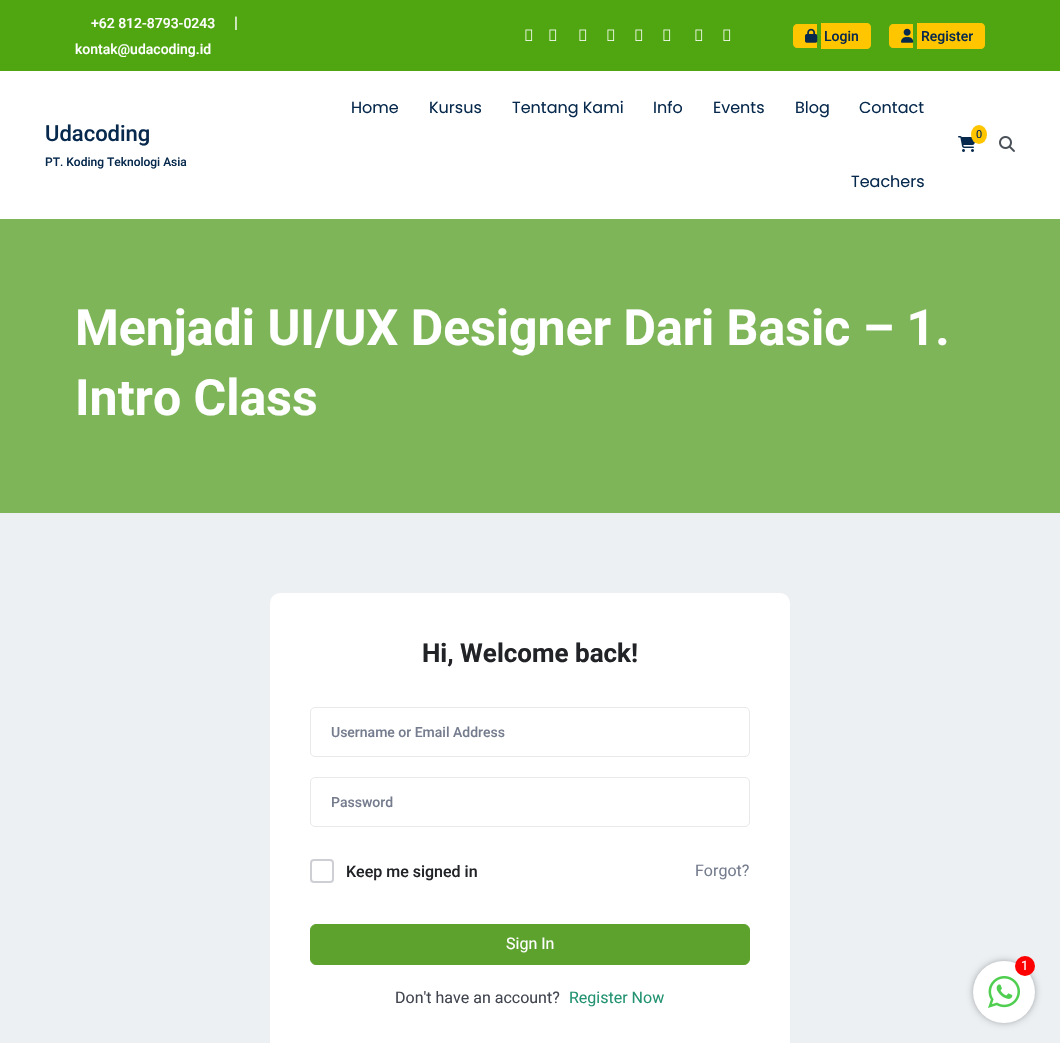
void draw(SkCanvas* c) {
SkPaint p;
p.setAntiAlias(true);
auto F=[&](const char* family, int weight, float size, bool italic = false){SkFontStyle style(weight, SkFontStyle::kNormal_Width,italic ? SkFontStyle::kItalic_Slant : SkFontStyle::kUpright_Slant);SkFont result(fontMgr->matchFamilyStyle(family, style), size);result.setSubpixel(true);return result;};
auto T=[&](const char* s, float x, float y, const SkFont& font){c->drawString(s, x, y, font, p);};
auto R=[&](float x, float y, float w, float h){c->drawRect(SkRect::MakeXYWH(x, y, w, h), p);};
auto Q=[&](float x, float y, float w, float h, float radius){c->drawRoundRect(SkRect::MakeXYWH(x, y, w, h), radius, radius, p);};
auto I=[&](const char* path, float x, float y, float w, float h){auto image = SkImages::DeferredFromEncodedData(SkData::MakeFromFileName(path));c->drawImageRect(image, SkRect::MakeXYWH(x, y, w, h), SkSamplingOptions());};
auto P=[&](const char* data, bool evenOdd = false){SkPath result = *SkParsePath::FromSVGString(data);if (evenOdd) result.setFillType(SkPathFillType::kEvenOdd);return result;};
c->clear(0xffffffff);
p.setColor(0xff4fa611);
R(0,0,1060,71);
auto f1 = F("Roboto",500,14);
p.setColor(0xffffffff);
T("+62 812-8793-0243",91,28,f1);
auto f2 = F("Roboto",400,16);
T("|",234,28,f2);
T("kontak@udacoding.id",75,54,f1);
I("1.png",525,29,8,12);
I("1.png",549,29,8,12);
I("1.png",579,29,8,12);
I("1.png",607,29,8,12);
I("1.png",635,29,8,12);
I("1.png",663,29,8,12);
I("1.png",695,29,8,12);
I("1.png",723,29,8,12);
p.setColor(0xffffc600);
c->drawPath(P("M797 24h20v24h-20c-2 0-4-2-4-4v-16c0-2 2-4 4-4z"),p);
c->drawPath(P("M821 23h46c2 0 4 2 4 4v18c0 2-2 4-4 4h-46z"),p);
I("2.png",805,28,13,15);
p.setColor(0xff07294d);
T("Login",824,41,f1);
p.setColor(0xffffc600);
c->drawPath(P("M893 24h20v24h-20c-2 0-4-2-4-4v-16c0-2 2-4 4-4z"),p);
c->drawPath(P("M917 23h64c2 0 4 2 4 4v18c0 2-2 4-4 4h-64z"),p);
I("3.png",901,28,13,15);
p.setColor(0xff07294d);
T("Register",921,41,f1);
auto f3 = F("Roboto",500,22);
T("Udacoding",45,141,f3);
auto f4 = F("Roboto",500,12);
T("PT. Koding Teknologi Asia",45,166,f4);
auto f5 = F("Poppins",400,16);
T("Home",351,113,f5);
T("Kursus",429,113,f5);
T("Tentang Kami",512,113,f5);
T("Info",653,113,f5);
T("Events",713,113,f5);
T("Blog",795,113,f5);
T("Contact",859,113,f5);
T("Teachers",851,187,f5);
I("4.png",958,136,17,16);
p.setColor(0xffffc600);
c->drawOval(SkRect::MakeXYWH(971,125,16,19),p);
auto f6 = F("Roboto",400,11);
p.setColor(0xff07294d);
T("0",976,138,f6);
I("5.png",999,136,16,16);
p.setColor(0xff7eb558);
R(0,219,1060,294);
auto f7 = F("Roboto",700,50);
p.setColor(0xffffffff);
T("Menjadi UI/UX Designer Dari Basic – 1.",75,345,f7);
T("Intro Class",75,415,f7);
p.setColor(0xffedf0f2);
R(0,513,1060,530);
p.setColor(0xffffffff);
Q(270,593,520,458,10);
auto f8 = F("Roboto",700,26);
p.setColor(0xff212327);
T("Hi, Welcome back!",422,662,f8);
p.setStroke(true);
p.setStrokeWidth(1);
p.setColor(0xffe8e9eb);
c->drawRoundRect(SkRect::MakeXYWH(310.5,707.5,439,49),4.5,4.5,p);
p.setStroke(false);
p.setColor(0xff757c8e);
T("Username or Email Address",331,737,f1);
p.setStroke(true);
p.setColor(0xffe8e9eb);
c->drawRoundRect(SkRect::MakeXYWH(310.5,777.5,439,49),4.5,4.5,p);
p.setStroke(false);
p.setColor(0xff757c8e);
T("Password",331,807,f1);
p.setStroke(true);
p.setStrokeWidth(2);
p.setColor(0xffcdcfd5);
c->drawRoundRect(SkRect::MakeXYWH(311,860,22,22),3,3,p);
auto f9 = F("Roboto",500,16);
p.setStroke(false);
p.setColor(0xff212327);
T("Keep me signed in",346,877,f9);
p.setColor(0xff757c8e);
T("Forgot?",695,876,f2);
p.setColor(0xff5ea22e);
c->drawRoundRect(SkRect::MakeXYWH(310.5,924.5,439,40),5.5,5.5,p);
p.setStroke(true);
p.setStrokeWidth(1);
c->drawRoundRect(SkRect::MakeXYWH(310.5,924.5,439,40),5.5,5.5,p);
p.setStroke(false);
p.setColor(0xffffffff);
T("Sign In",506,949,f2);
p.setColor(0xff41454f);
T("Don't have an account?",395,1003,f2);
p.setColor(0xff239371);
T("Register Now",569,1003,f2);
p.setColor(0xff4b5158);
p.setMaskFilter(SkMaskFilter::MakeBlur(kNormal_SkBlurStyle, 5));
c->drawRoundRect(SkRect::MakeXYWH(976,964,56,56),28,28,p);
p.setMaskFilter(nullptr);
p.setColor(0xffffffff);
c->drawCircle(1004,992,31,p);
p.setColor(0xffff0000);
c->drawCircle(1025,966,10,p);
auto f10 = F("Roboto",400,13);
p.setColor(0xffffffff);
T("1",1021,970,f10);
I("6.png",988,976,32,32);
}
